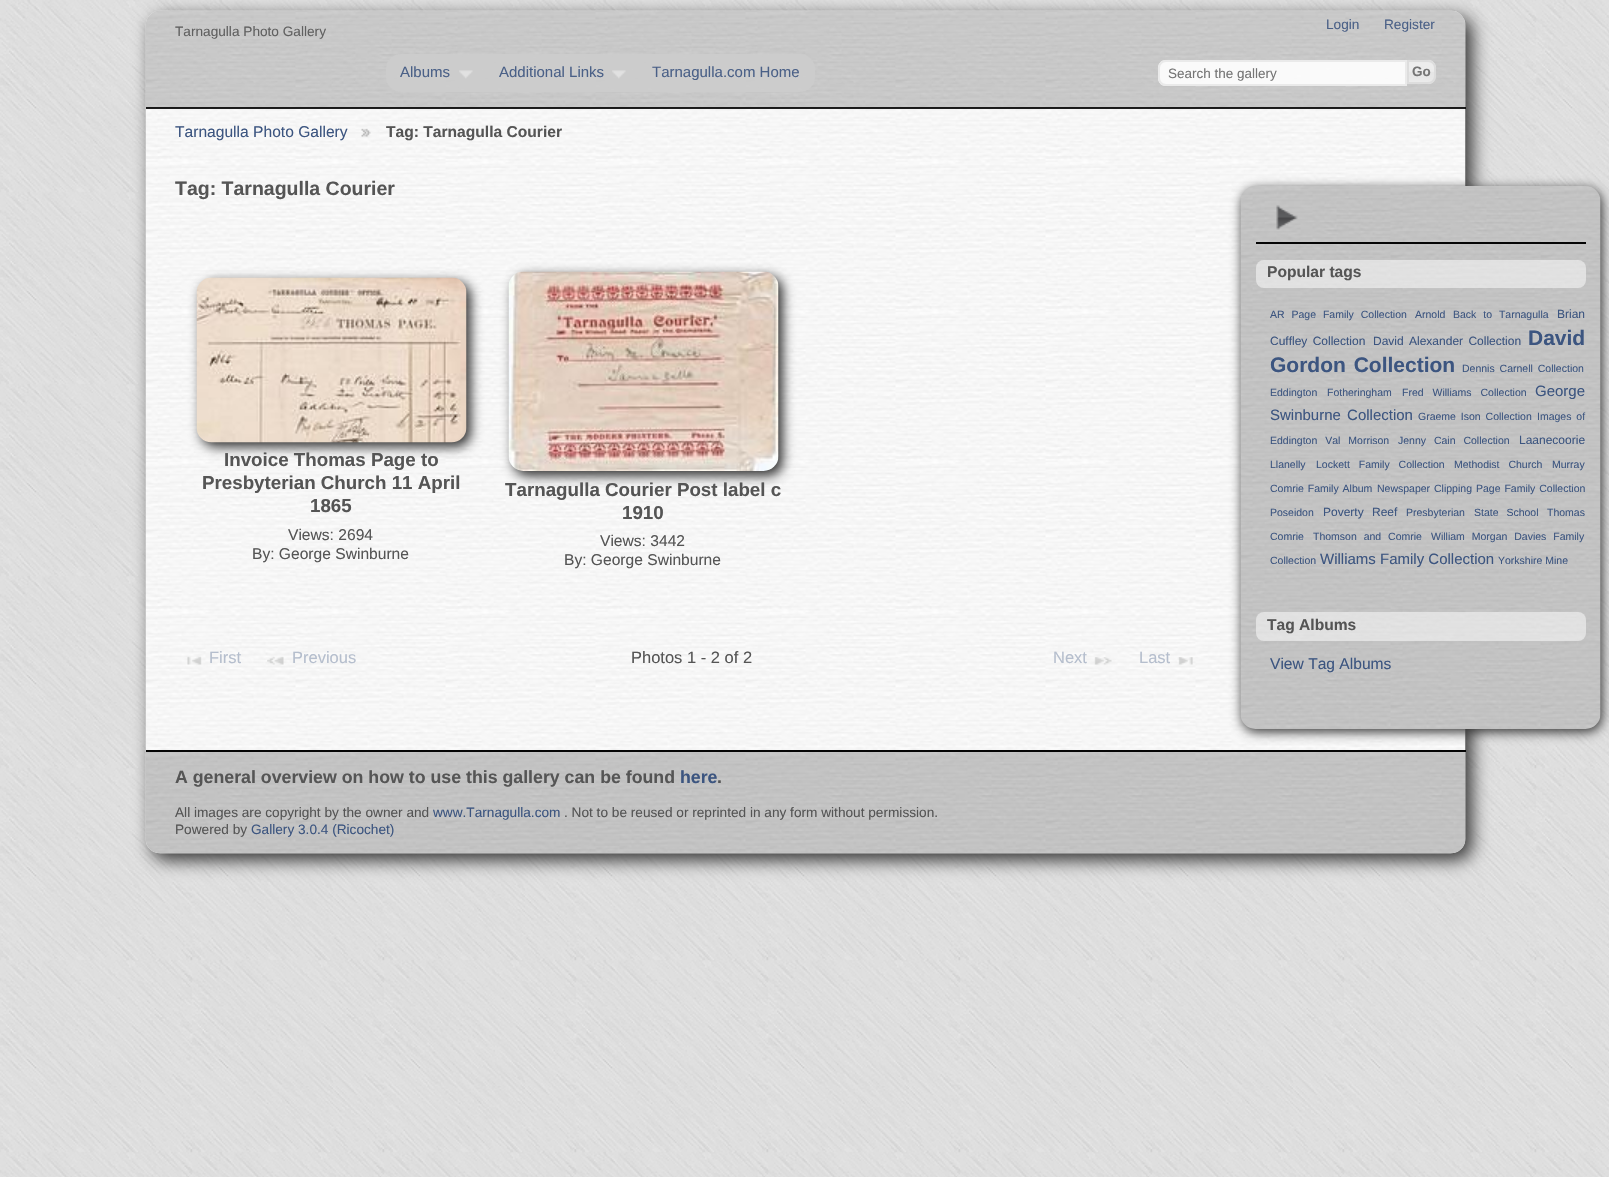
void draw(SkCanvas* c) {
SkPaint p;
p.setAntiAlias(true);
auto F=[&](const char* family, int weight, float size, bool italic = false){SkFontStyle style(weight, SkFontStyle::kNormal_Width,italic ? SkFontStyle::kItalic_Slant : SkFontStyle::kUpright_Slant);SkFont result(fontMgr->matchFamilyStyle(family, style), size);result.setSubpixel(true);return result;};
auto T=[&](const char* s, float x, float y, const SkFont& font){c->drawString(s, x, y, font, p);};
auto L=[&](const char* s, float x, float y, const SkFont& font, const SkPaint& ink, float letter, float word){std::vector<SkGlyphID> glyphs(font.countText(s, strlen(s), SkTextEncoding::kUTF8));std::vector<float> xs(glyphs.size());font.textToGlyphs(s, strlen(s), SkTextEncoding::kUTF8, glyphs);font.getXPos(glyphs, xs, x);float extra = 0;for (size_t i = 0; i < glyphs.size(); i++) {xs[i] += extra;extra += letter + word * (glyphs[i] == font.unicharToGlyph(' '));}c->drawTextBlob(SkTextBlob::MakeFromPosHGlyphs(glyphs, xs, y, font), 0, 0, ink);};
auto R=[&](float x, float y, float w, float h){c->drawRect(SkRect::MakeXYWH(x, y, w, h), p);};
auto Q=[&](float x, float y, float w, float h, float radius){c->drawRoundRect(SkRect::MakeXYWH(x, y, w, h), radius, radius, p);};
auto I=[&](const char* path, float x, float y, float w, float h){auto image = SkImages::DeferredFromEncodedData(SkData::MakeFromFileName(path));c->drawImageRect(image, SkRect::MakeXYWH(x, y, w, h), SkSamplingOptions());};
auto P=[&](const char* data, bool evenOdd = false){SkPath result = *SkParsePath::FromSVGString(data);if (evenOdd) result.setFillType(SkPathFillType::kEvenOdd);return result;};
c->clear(0xffffffff);
I("1.png",0,0,1609,1177);
p.setColor(0xff333333);
p.setMaskFilter(SkMaskFilter::MakeBlur(kNormal_SkBlurStyle, 9));
c->drawRoundRect(SkRect::MakeXYWH(152,17,1320,843),15,15,p);
p.setMaskFilter(nullptr);
I("2.png",145,10,1321,844);
I("3.png",145,10,1321,98);
p.setColor(0xe6050505);
R(146,107,1320,2);
auto f1 = F("Liberation Sans",400,13.65);
p.setColor(0xff606060);
T("Tarnagulla Photo Gallery",175,36,f1);
p.setColor(0xff4a6087);
T("Login",1326,29,f1);
T("Register",1384,29,f1);
p.setColor(0xe6cccccc);
Q(386,54,429,38,15);
auto f2 = F("Liberation Sans",400,15);
p.setColor(0xff4a6087);
T("Albums",400,77,f2);
I("4.png",459,70,14,9);
T("Additional Links",499,77,f2);
I("5.png",612,70,14,9);
T("Tarnagulla.com Home",652,77,f2);
p.setColor(0xe6ffffff);
c->drawPath(P("M1166 60h241v26h-241c-4.5 0-8-3.5-8-8v-10c0-4.5 3.5-8 8-8z"),p);
p.setStroke(true);
p.setStrokeWidth(2);
p.setColor(0xe6e8e8e8);
c->drawPath(P("M1166 61h240v24h-240c-4 0-7-3-7-7v-10c0-4 3-7 7-7z"),p);
auto f3 = F("Liberation Sans",400,13.5);
p.setStroke(false);
p.setColor(0xff757575);
T("Search the gallery",1168,78,f3);
p.setColor(0xe6e6e6e6);
c->drawPath(P("M1407 60h21c4.5 0 8 3.5 8 8v8c0 4.5-3.5 8-8 8h-21z"),p);
I("6.png",1407,60,28,24);
p.setStroke(true);
p.setColor(0xe6dbdbdb);
c->drawPath(P("M1408 61h20c4 0 7 3 7 7v8c0 4-3 7-7 7h-20z"),p);
auto f4 = F("Liberation Sans",700,13.5);
p.setStroke(false);
p.setColor(0xff757575);
T("Go",1412,76,f4);
auto f5 = F("Liberation Sans",400,15.6);
p.setColor(0xff3c5580);
T("Tarnagulla Photo Gallery",175,137,f5);
I("7.png",361,128,10,9);
auto f6 = F("Liberation Sans",700,15.6);
p.setColor(0xff555555);
T("Tag: Tarnagulla Courier",386,137,f6);
auto f7 = F("Liberation Sans",700,19.5);
T("Tag: Tarnagulla Courier",175,195,f7);
p.setColor(0xff333333);
p.setMaskFilter(SkMaskFilter::MakeBlur(kNormal_SkBlurStyle, 6));
c->drawRoundRect(SkRect::MakeXYWH(201,282,270,165),15,15,p);
p.setMaskFilter(nullptr);
I("8.png",196,277,271,166);
auto f8 = F("Liberation Sans",700,18.75);
p.setColor(0xff555555);
T("Invoice Thomas Page to",224,466,f8);
T("Presbyterian Church 11 April",202,489,f8);
T("1865",310,512,f8);
T("Views: 2694",288,540,f5);
T("By: George Swinburne",252,559,f5);
p.setColor(0xff333333);
p.setMaskFilter(SkMaskFilter::MakeBlur(kNormal_SkBlurStyle, 6));
c->drawRoundRect(SkRect::MakeXYWH(513,276,270,200),15,15,p);
p.setMaskFilter(nullptr);
I("9.png",508,271,271,200);
p.setColor(0xff555555);
T("Tarnagulla Courier Post label c",505,496,f8);
T("1910",622,519,f8);
T("Views: 3442",600,546,f5);
T("By: George Swinburne",564,565,f5);
I("10.png",187,656,15,9);
auto f9 = F("Liberation Sans",400,16.5);
p.setColor(0xffb5becd);
T("First",209,663,f9);
I("11.png",267,656,17,9);
T("Previous",292,663,f9);
p.setColor(0xff555555);
T("Photos 1 - 2 of 2",631,663,f9);
p.setColor(0xffb5becd);
T("Next",1053,663,f9);
I("12.png",1094,657,18,8);
T("Last",1139,663,f9);
I("13.png",1178,657,15,8);
I("16.png",145,750,1321,104);
p.setColor(0xff050505);
R(146,750,1320,2);
p.setColor(0xff333333);
p.setMaskFilter(SkMaskFilter::MakeBlur(kNormal_SkBlurStyle, 6));
c->drawRoundRect(SkRect::MakeXYWH(1242,189,360,543),15,15,p);
p.setMaskFilter(nullptr);
I("14.png",1240,186,361,543);
p.setColor(0xff050505);
R(1256,242,330,2);
I("15.png",1276,205,22,25);
p.setColor(0x80ffffff);
Q(1256,260,330,28,8);
p.setColor(0xff555555);
T("Popular tags",1267,277,f6);
auto f10 = F("Liberation Sans",400,10.5);
p.setColor(0xff3c5580);
L("AR Page Family Collection",1270,318,f10,p,0,4);
T("Arnold",1415,318,f10);
L("Back to Tarnagulla",1453,318,f10,p,0,4);
auto f11 = F("Liberation Sans",400,12);
T("Brian",1557,318,f11);
L("Cuffley Collection",1270,345,f11,p,0,2);
L("David Alexander Collection",1373,345,f11,p,0,2);
auto f12 = F("Liberation Sans",700,21);
T("David",1528,345,f12);
L("Gordon Collection",1270,372,f12,p,0,2);
L("Dennis Carnell Collection",1462,372,f10,p,0,2);
T("Eddington",1270,396,f10);
T("Fotheringham",1327,396,f10);
L("Fred Williams Collection",1402,396,f10,p,0,6);
T("George",1535,396,f2);
L("Swinburne Collection",1270,420,f2,p,0,2);
L("Graeme Ison Collection",1418,420,f10,p,0,2);
L("Images of",1537,420,f10,p,0,2);
L("Eddington Val Morrison",1270,444,f10,p,0,5);
L("Jenny Cain Collection",1398,444,f10,p,0,5);
T("Laanecoorie",1519,444,f11);
T("Llanelly",1270,468,f10);
L("Lockett Family Collection",1316,468,f10,p,0,6);
L("Methodist Church",1454,468,f10,p,0,6);
T("Murray",1552,468,f10);
L("Comrie Family Album",1270,492,f10,p,0,1);
L("Newspaper Clipping",1377,492,f10,p,0,1);
L("Page Family Collection",1476,492,f10,p,0,1);
T("Poseidon",1270,516,f10);
L("Poverty Reef",1323,516,f11,p,0,5);
T("Presbyterian",1406,516,f10);
L("State School",1474,516,f10,p,0,5);
T("Thomas",1547,516,f10);
T("Comrie",1270,540,f10);
L("Thomson and Comrie",1313,540,f10,p,0,4);
L("William Morgan Davies Family",1431,540,f10,p,0,4);
T("Collection",1270,564,f10);
T("Williams Family Collection",1320,564,f2);
T("Yorkshire Mine",1498,564,f10);
p.setColor(0x80ffffff);
Q(1256,612,330,29,8);
p.setColor(0xff555555);
T("Tag Albums",1267,630,f6);
p.setColor(0xff3c5580);
T("View Tag Albums",1270,669,f5);
auto f13 = F("Liberation Sans",700,17.75);
p.setColor(0xff555555);
T("A general overview on how to use this gallery can be found",175,783,f13);
p.setColor(0xff3c5580);
T("here",680,783,f13);
p.setColor(0xff555555);
T(".",717,783,f13);
T("All images are copyright by the owner and",175,817,f1);
p.setColor(0xff3c5580);
T("www.Tarnagulla.com",433,817,f1);
p.setColor(0xff555555);
T(". Not to be reused or reprinted in any form without permission.",564,817,f1);
T("Powered by",175,834,f1);
p.setColor(0xff3c5580);
T("Gallery 3.0.4 (Ricochet)",251,834,f1);
}
